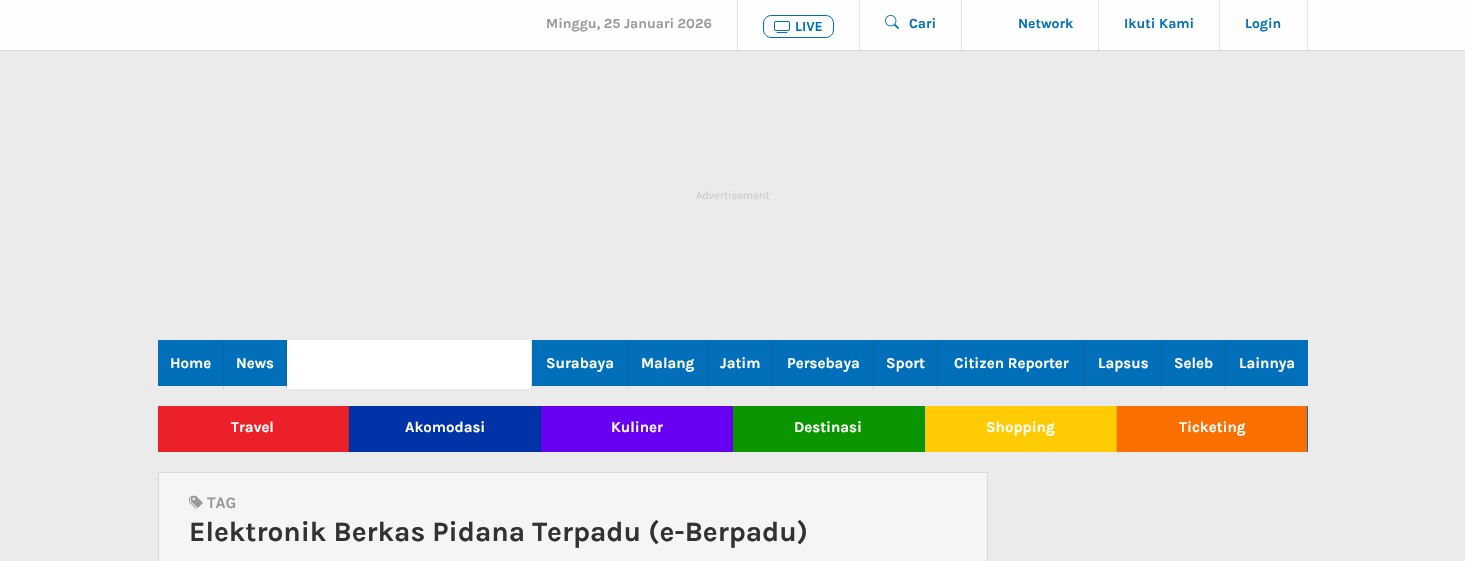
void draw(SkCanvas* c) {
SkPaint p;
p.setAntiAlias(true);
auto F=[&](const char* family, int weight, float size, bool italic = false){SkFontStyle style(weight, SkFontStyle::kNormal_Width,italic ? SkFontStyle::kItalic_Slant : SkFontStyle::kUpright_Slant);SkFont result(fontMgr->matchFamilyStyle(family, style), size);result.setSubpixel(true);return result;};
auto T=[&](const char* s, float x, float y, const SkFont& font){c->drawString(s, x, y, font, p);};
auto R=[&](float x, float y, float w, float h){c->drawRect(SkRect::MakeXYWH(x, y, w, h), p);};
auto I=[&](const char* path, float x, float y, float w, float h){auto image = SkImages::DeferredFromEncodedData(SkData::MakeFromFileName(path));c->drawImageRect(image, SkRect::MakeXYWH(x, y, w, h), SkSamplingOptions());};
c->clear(0xffebebeb);
p.setColor(0xffd4d4d4);
R(1225,386,1,3);
R(1161,386,1,3);
R(1084,386,1,3);
R(937,386,1,3);
R(873,386,1,3);
R(772,386,1,3);
R(707,386,1,3);
R(627,386,1,3);
R(286,386,1,3);
R(223,386,1,3);
p.setColor(0xfffefefe);
R(0,0,1465,50);
p.setColor(0xffe5e5e5);
R(1307,0,1,51);
R(1219,0,1,51);
R(1098,0,1,51);
R(961,0,1,51);
R(859,0,1,51);
R(737,0,1,51);
p.setColor(0xffd8d8d8);
R(0,50,1465,1);
p.setColor(0xffc2c2c2);
R(1307,50,1,1);
R(1219,50,1,1);
R(1098,50,1,1);
R(961,50,1,1);
R(859,50,1,1);
R(737,50,1,1);
auto f1 = F("Karla",700,14);
p.setColor(0xff999999);
T("Minggu, 25 Januari 2026",546,28,f1);
p.setStroke(true);
p.setStrokeWidth(1);
p.setColor(0xff016fba);
c->drawRoundRect(SkRect::MakeXYWH(763.5,15.5,70,22),7.5,7.5,p);
I("1.png",774,21,16,12);
p.setStroke(false);
T("LIVE",795,31,f1);
I("2.png",885,15,14,14);
T("Cari",909,28,f1);
T("Network",1018,28,f1);
T("Ikuti Kami",1124,28,f1);
T("Login",1245,28,f1);
auto f2 = F("Karla",400,11);
p.setColor(0xffc8ccce);
T("Advertisement",696,199,f2);
p.setColor(0xff016fba);
R(158,340,1150,46);
p.setColor(0xff0164a7);
R(1225,340,1,46);
R(1161,340,1,46);
R(1084,340,1,46);
R(937,340,1,46);
R(873,340,1,46);
R(772,340,1,46);
R(707,340,1,46);
R(627,340,1,46);
R(286,340,1,46);
R(223,340,1,46);
auto f3 = F("Karla",700,15);
p.setColor(0xffffffff);
T("Home",170,368,f3);
T("News",236,368,f3);
R(287,340,244,49);
p.setColor(0xffe6e6e6);
R(531,340,1,49);
p.setColor(0xffffffff);
T("Surabaya",546,368,f3);
T("Malang",641,368,f3);
T("Jatim",720,368,f3);
T("Persebaya",787,368,f3);
T("Sport",886,368,f3);
T("Citizen Reporter",954,368,f3);
T("Lapsus",1098,368,f3);
T("Seleb",1174,368,f3);
T("Lainnya",1239,368,f3);
p.setColor(0xff016fba);
R(1307,406,1,46);
p.setColor(0xffec2028);
R(158,406,190,46);
p.setColor(0xffd41d24);
R(348,406,1,46);
p.setColor(0xffffffff);
T("Travel",231,432,f3);
p.setColor(0xff0033a7);
R(349,406,191,46);
p.setColor(0xff002e96);
R(540,406,1,46);
p.setColor(0xffffffff);
T("Akomodasi",405,432,f3);
p.setColor(0xff6700f3);
R(541,406,191,46);
p.setColor(0xff5d00db);
R(732,406,1,46);
p.setColor(0xffffffff);
T("Kuliner",611,432,f3);
p.setColor(0xff0b9600);
R(733,406,191,46);
p.setColor(0xff0a8700);
R(924,406,1,46);
p.setColor(0xffffffff);
T("Destinasi",794,432,f3);
p.setColor(0xffffcb04);
R(925,406,191,46);
p.setColor(0xffe6b704);
R(1116,406,1,46);
p.setColor(0xffffffff);
T("Shopping",986,432,f3);
p.setColor(0xfffa7000);
R(1117,406,190,46);
p.setColor(0xffffffff);
T("Ticketing",1179,432,f3);
p.setStroke(true);
p.setColor(0xffd9d9d9);
c->drawRect(SkRect::MakeXYWH(158.5,472.5,829,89),p);
p.setStroke(false);
p.setColor(0xfff5f5f5);
R(159,473,828,88);
I("3.png",189,495,14,14);
auto f4 = F("Karla",700,16);
p.setColor(0xff999999);
T("TAG",207,508,f4);
auto f5 = F("Karla",700,28);
p.setColor(0xff323233);
T("Elektronik Berkas Pidana Terpadu (e-Berpadu)",189,541,f5);
}
